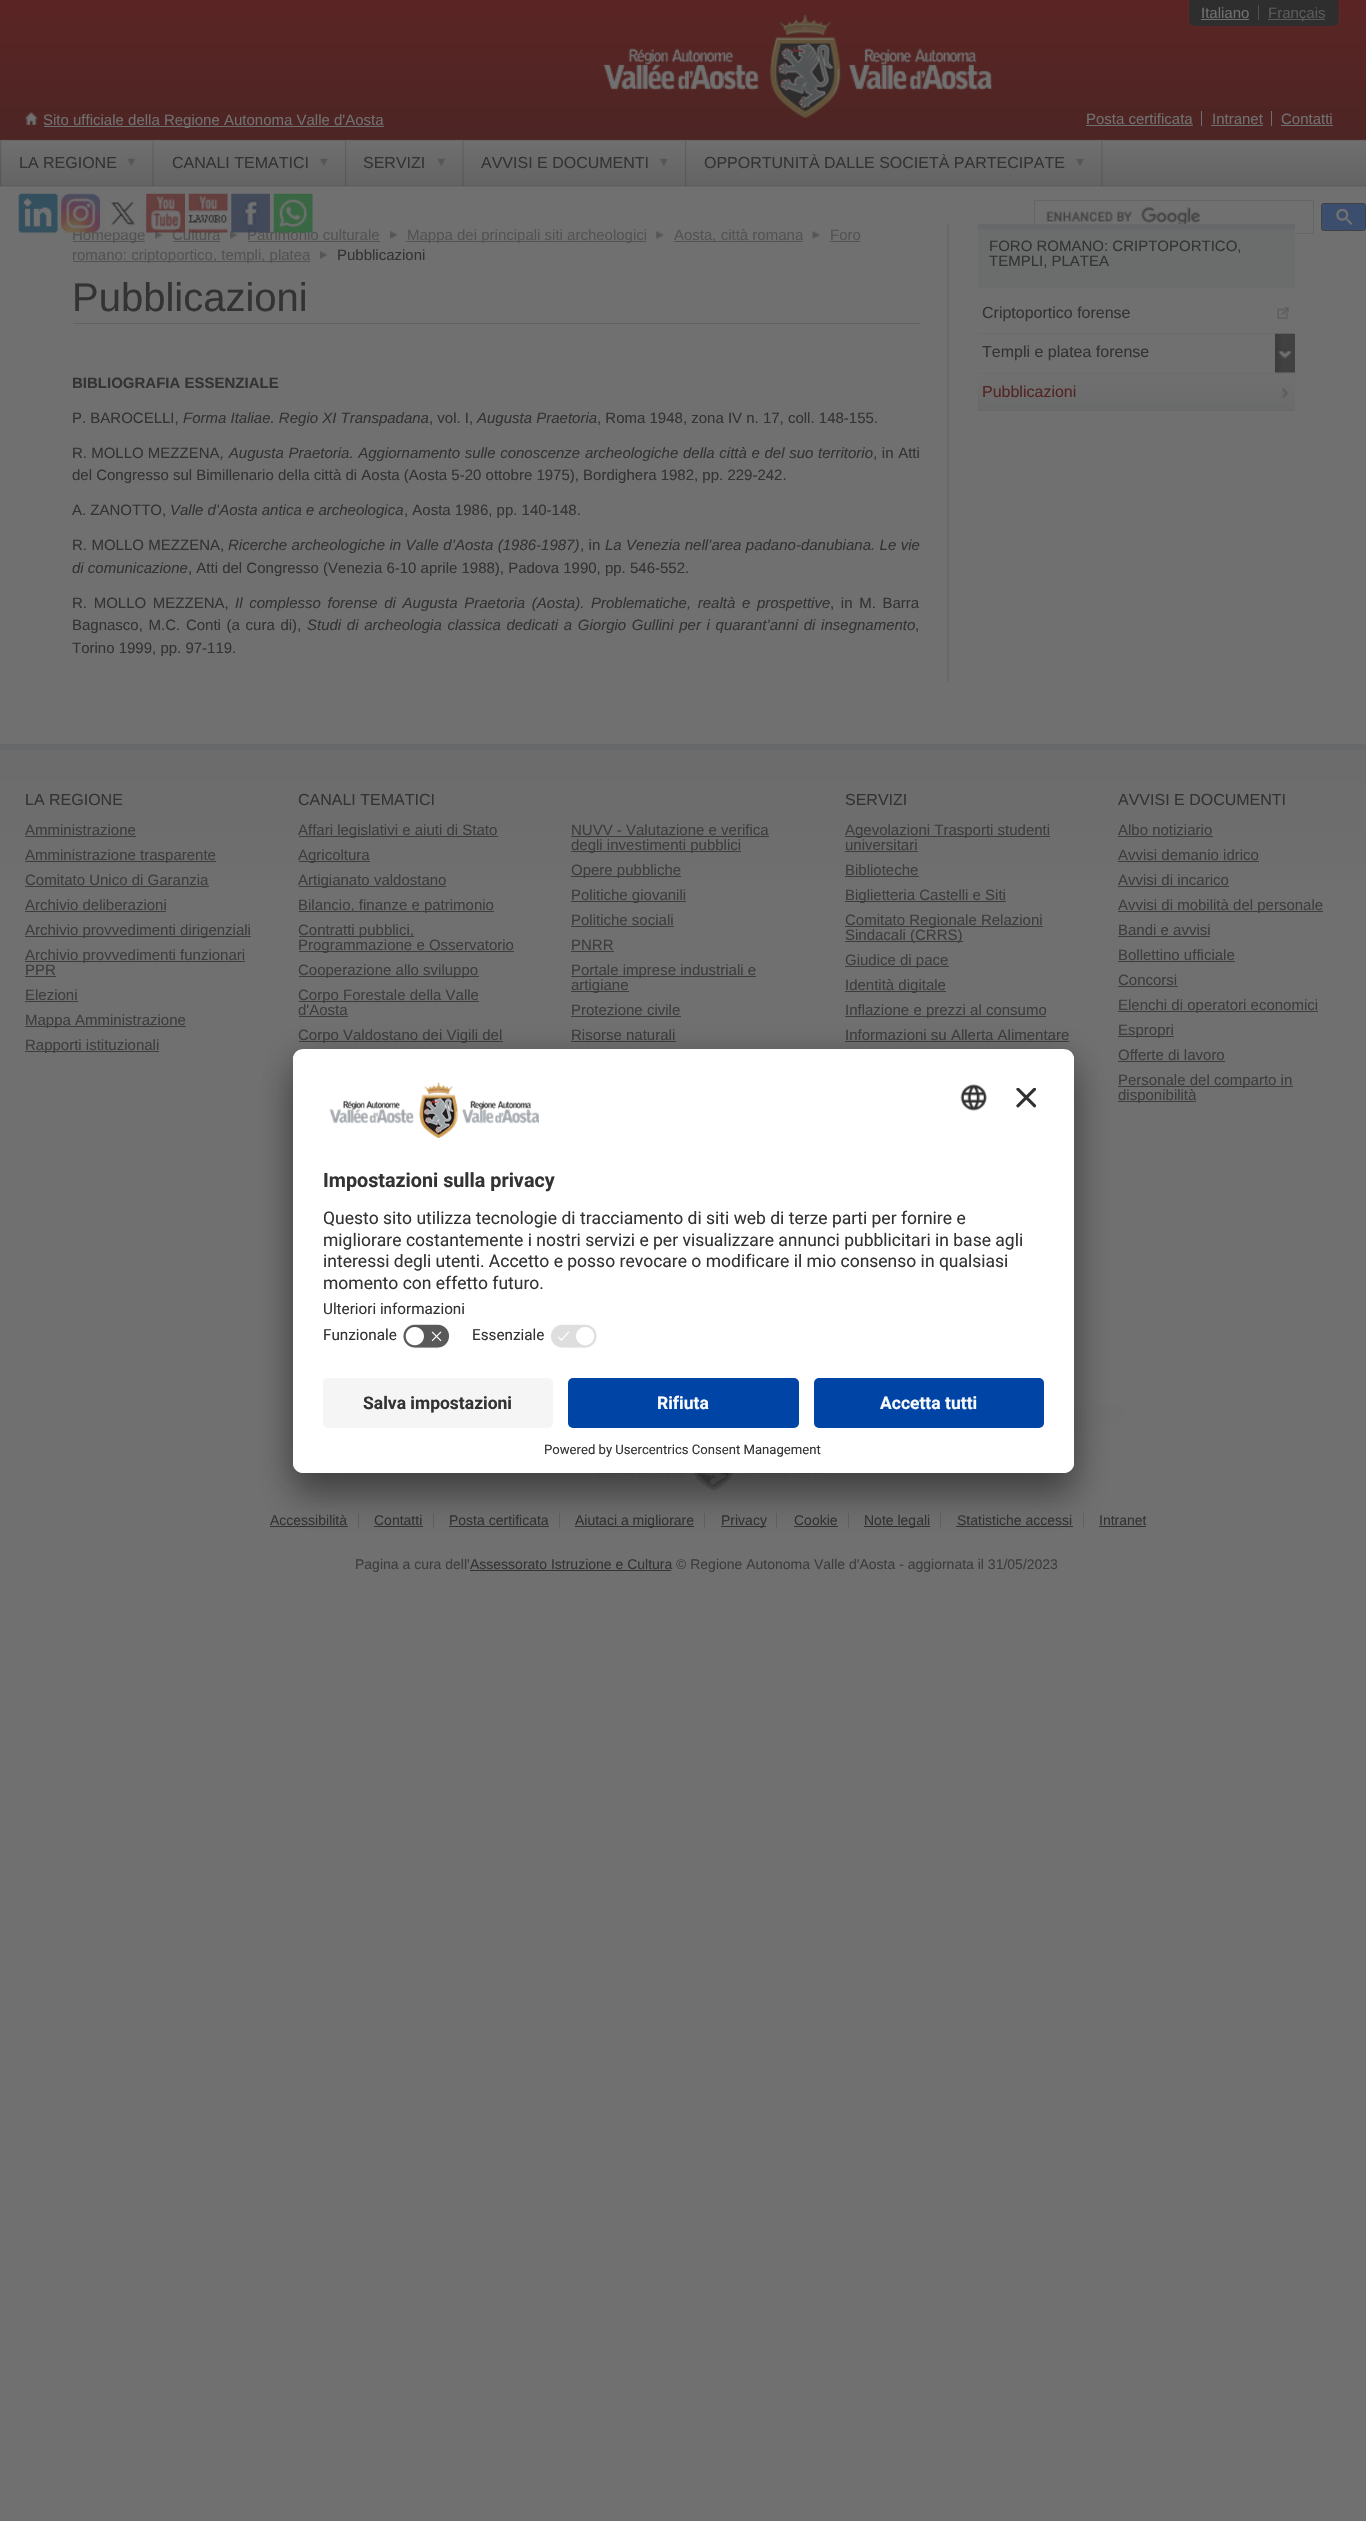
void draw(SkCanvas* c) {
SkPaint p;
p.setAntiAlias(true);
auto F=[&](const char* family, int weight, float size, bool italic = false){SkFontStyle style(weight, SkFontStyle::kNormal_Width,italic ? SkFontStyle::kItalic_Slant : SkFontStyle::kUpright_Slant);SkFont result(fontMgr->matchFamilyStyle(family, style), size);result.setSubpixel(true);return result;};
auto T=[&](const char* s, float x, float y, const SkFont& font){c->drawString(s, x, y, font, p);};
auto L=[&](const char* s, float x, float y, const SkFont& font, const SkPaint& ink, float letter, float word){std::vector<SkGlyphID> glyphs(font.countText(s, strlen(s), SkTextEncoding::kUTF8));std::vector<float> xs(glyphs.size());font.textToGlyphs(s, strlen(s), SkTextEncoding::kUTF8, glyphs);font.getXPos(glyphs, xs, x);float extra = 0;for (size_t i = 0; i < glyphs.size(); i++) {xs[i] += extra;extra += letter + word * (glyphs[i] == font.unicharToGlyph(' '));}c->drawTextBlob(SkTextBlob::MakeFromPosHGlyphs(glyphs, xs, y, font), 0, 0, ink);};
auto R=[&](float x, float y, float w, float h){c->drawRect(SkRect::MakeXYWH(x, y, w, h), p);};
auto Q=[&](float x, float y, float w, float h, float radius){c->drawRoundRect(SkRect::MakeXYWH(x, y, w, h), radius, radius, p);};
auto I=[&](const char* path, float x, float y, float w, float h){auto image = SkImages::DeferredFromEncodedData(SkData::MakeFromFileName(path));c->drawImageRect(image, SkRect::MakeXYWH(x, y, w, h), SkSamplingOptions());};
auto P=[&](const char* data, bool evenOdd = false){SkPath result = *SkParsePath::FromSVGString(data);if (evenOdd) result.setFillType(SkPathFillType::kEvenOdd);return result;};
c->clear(0xff707070);
p.setColor(0xff5a2424);
R(0,0,1366,12);
I("1.png",0,12,1366,123);
I("2.png",603,15,389,103);
I("3.png",1185,0,8,28);
I("4.png",1192,0,149,28);
p.setColor(0xff4f4f4f);
R(1258,5,1,15);
auto f1 = F("Liberation Sans",400,15);
p.setColor(0xff707070);
T("Italiano",1201,18,f1);
R(1201,19,48,1);
p.setColor(0xff5a5a5a);
R(1268,19,57,1);
T("Français",1268,18,f1);
p.setColor(0xff707070);
R(1201,111,1,15);
T("Posta certificata",1086,124,f1);
R(1086,125,107,1);
R(1271,111,1,15);
T("Intranet",1212,124,f1);
R(1211,125,52,1);
T("Contatti",1281,124,f1);
R(1281,125,52,1);
I("5.png",25,112,13,13);
R(44,126,340,1);
T("Sito ufficiale della Regione Autonoma Valle d'Aosta",43,125,f1);
I("6.png",0,135,1366,52);
I("7.png",0,185,1366,2);
I("8.png",0,140,2,47);
I("9.png",152,140,2,47);
I("10.png",127,158,8,8);
auto f2 = F("Liberation Sans",400,16);
p.setColor(0xff333333);
T("LA REGIONE",19,168,f2);
I("8.png",345,140,2,47);
I("11.png",320,158,8,8);
T("CANALI TEMATICI",172,168,f2);
I("9.png",462,140,2,47);
I("10.png",437,158,8,8);
T("SERVIZI",363,168,f2);
I("8.png",685,140,2,47);
I("11.png",660,158,8,8);
T("AVVISI E DOCUMENTI",481,168,f2);
I("12.png",1101,140,2,47);
I("13.png",1076,158,8,8);
T("OPPORTUNITÀ DALLE SOCIETÀ PARTECIPATE",704,168,f2);
I("14.png",18,193,40,40);
p.setColor(0xff525252);
R(73,241,72,1);
T("Homepage",72,240,f1);
I("15.png",61,193,39,40);
I("16.png",105,201,38,32);
I("24.png",155,231,8,8);
T("Cultura",172,240,f1);
I("17.png",146,193,39,40);
I("18.png",188,193,40,40);
I("24.png",230,231,8,8);
T("Patrimonio culturale",247,240,f1);
I("19.png",231,193,39,40);
I("20.png",273,193,40,40);
p.setStroke(true);
p.setStrokeWidth(1);
p.setColor(0xff656565);
c->drawRect(SkRect::MakeXYWH(1034.5,200.5,279,33),p);
I("21.png",1046,207,154,17);
p.setStroke(false);
p.setColor(0xff3b4e6e);
c->drawRoundRect(SkRect::MakeXYWH(1321.5,203.5,44,27),2,2,p);
p.setStroke(true);
p.setColor(0xff424242);
c->drawRoundRect(SkRect::MakeXYWH(1321.5,203.5,44,27),2,2,p);
I("22.png",1336,209,17,16);
I("23.png",947,223,348,459);
p.setStroke(false);
p.setColor(0xff525252);
R(173,241,47,1);
R(248,241,132,1);
I("24.png",390,231,8,8);
R(406,241,240,1);
T("Mappa dei principali siti archeologici",407,240,f1);
I("25.png",656,231,8,8);
R(674,241,129,1);
T("Aosta, città romana",674,240,f1);
I("26.png",812,231,8,8);
T("Foro",830,240,f1);
R(830,241,30,1);
R(73,261,237,1);
T("romano: criptoportico, templi, platea",72,260,f1);
I("24.png",320,251,8,8);
p.setColor(0xff333333);
T("Pubblicazioni",337,260,f1);
p.setColor(0xff616161);
R(73,323,847,1);
auto f3 = F("Liberation Sans",400,40);
p.setColor(0xff333333);
T("Pubblicazioni",72,311,f3);
auto f4 = F("Liberation Sans",700,15);
T("BIBLIOGRAFIA ESSENZIALE",72,388,f4);
T("P. BAROCELLI,",72,423,f1);
auto f5 = F("Liberation Sans",400,15,true);
T("Forma Italiae. Regio XI Transpadana",183,423,f5);
T(", vol. I,",429,423,f1);
T("Augusta Praetoria",477,423,f5);
T(", Roma 1948, zona IV n. 17, coll. 148-155.",597,423,f1);
T("R. MOLLO MEZZENA",72,458,f1);
L(", Augusta Praetoria. Aggiornamento sulle conoscenze archeologiche della città e del suo territorio",220,458,f5,p,0,.5);
L(", in Atti",873,458,f1,p,0,.5);
T("del Congresso sul Bimillenario della città di Aosta (Aosta 5-20 ottobre 1975), Bordighera 1982, pp. 229-242.",72,480,f1);
T("A. ZANOTTO,",72,515,f1);
T("Valle d’Aosta antica e archeologica",170,515,f5);
T(", Aosta 1986, pp. 140-148.",404,515,f1);
L("R. MOLLO MEZZENA,",72,550,f1,p,0,.25);
L("Ricerche archeologiche in Valle d’Aosta (1986-1987)",228,550,f5,p,0,.25);
L(", in",580,550,f1,p,0,.25);
L("La Venezia nell’area padano-danubiana. Le vie",605,550,f5,p,0,.25);
T("di comunicazione",72,573,f5);
T(", Atti del Congresso (Venezia 6-10 aprile 1988), Padova 1990, pp. 546-552.",188,573,f1);
L("R. MOLLO MEZZENA,",72,608,f1,p,0,2.5);
L("Il complesso forense di Augusta Praetoria (Aosta). Problematiche, realtà e prospettive",235,608,f5,p,0,2.5);
L(", in M. Barra",830,608,f1,p,0,2.5);
L("Bagnasco, M.C. Conti (a cura di),",72,630,f1,p,0,1.5);
L("Studi di archeologia classica dedicati a Giorgio Gullini per i quarant’anni di insegnamento",307,630,f5,p,0,1.5);
T(",",915,630,f1);
T("Torino 1999, pp. 97-119.",72,653,f1);
p.setColor(0xff6b6c6c);
R(978,229,317,59);
p.setColor(0xff676869);
R(978,224,317,5);
p.setColor(0xff333333);
T("FORO ROMANO: CRIPTOPORTICO,",989,251,f1);
T("TEMPLI, PLATEA",989,266,f1);
p.setColor(0xff6a6b6b);
R(978,333,317,1);
I("27.png",1277,307,12,12);
p.setColor(0xff333333);
T("Criptoportico forense",982,318,f2);
p.setColor(0xff6a6b6b);
R(978,373,317,1);
p.setColor(0xff333333);
T("Templi e platea forense",982,357,f2);
I("28.png",1275,333,20,40);
I("29.png",977,373,318,39);
I("30.png",1281,387,8,12);
p.setColor(0xff532424);
T("Pubblicazioni",982,397,f2);
I("31.png",0,750,1366,131);
p.setColor(0xff676869);
R(0,744,1366,6);
p.setColor(0xff333333);
T("LA REGIONE",25,805,f2);
p.setColor(0xff3d3d3d);
T("Amministrazione",25,835,f1);
R(25,836,111,1);
R(25,861,191,1);
T("Amministrazione trasparente",25,860,f1);
T("Comitato Unico di Garanzia",25,885,f1);
R(25,886,184,1);
T("Archivio deliberazioni",25,910,f1);
R(25,911,141,1);
R(25,936,226,1);
T("Archivio provvedimenti dirigenziali",25,935,f1);
R(25,961,220,1);
T("Archivio provvedimenti funzionari",25,960,f1);
T("PPR",25,975,f1);
R(25,976,31,1);
T("Elezioni",25,1000,f1);
R(25,1001,53,1);
R(25,1026,161,1);
T("Mappa Amministrazione",25,1025,f1);
R(25,1051,134,1);
T("Rapporti istituzionali",25,1050,f1);
p.setColor(0xff333333);
T("CANALI TEMATICI",298,805,f2);
p.setColor(0xff3d3d3d);
R(299,836,199,1);
T("Affari legislativi e aiuti di Stato",298,835,f1);
R(299,861,71,1);
T("Agricoltura",298,860,f1);
R(299,886,147,1);
T("Artigianato valdostano",298,885,f1);
R(299,911,195,1);
T("Bilancio, finanze e patrimonio",298,910,f1);
R(299,936,115,1);
T("Contratti pubblici,",298,935,f1);
R(299,951,215,1);
T("Programmazione e Osservatorio",298,950,f1);
R(299,976,180,1);
T("Cooperazione allo sviluppo",298,975,f1);
R(299,1001,180,1);
T("Corpo Forestale della Valle",298,1000,f1);
T("d'Aosta",298,1015,f1);
R(299,1016,49,1);
R(299,1041,204,1);
T("Corpo Valdostano dei Vigili del",298,1040,f1);
T("NUVV - Valutazione e verifica",571,835,f1);
R(571,836,198,1);
R(571,851,170,1);
T("degli investimenti pubblici",571,850,f1);
R(571,876,110,1);
T("Opere pubbliche",571,875,f1);
R(571,901,115,1);
T("Politiche giovanili",571,900,f1);
T("Politiche sociali",571,925,f1);
R(571,926,103,1);
T("PNRR",571,950,f1);
R(571,951,43,1);
R(571,976,185,1);
T("Portale imprese industriali e",571,975,f1);
R(571,991,58,1);
T("artigiane",571,990,f1);
T("Protezione civile",571,1015,f1);
R(571,1016,110,1);
T("Risorse naturali",571,1040,f1);
R(571,1041,105,1);
p.setColor(0xff333333);
T("SERVIZI",845,805,f2);
p.setColor(0xff3d3d3d);
R(845,836,205,1);
T("Agevolazioni Trasporti studenti",845,835,f1);
T("universitari",845,850,f1);
R(845,851,73,1);
T("Biblioteche",845,875,f1);
R(845,876,74,1);
R(845,901,161,1);
T("Biglietteria Castelli e Siti",845,900,f1);
R(845,926,198,1);
T("Comitato Regionale Relazioni",845,925,f1);
R(845,941,118,1);
T("Sindacali (CRRS)",845,940,f1);
R(845,966,104,1);
T("Giudice di pace",845,965,f1);
R(845,991,101,1);
T("Identità digitale",845,990,f1);
R(845,1016,201,1);
T("Inflazione e prezzi al consumo",845,1015,f1);
T("Informazioni su Allerta Alimentare",845,1040,f1);
R(845,1041,224,1);
p.setColor(0xff333333);
T("AVVISI E DOCUMENTI",1118,805,f2);
p.setColor(0xff3d3d3d);
T("Albo notiziario",1118,835,f1);
R(1118,836,95,1);
T("Avvisi demanio idrico",1118,860,f1);
R(1118,861,141,1);
T("Avvisi di incarico",1118,885,f1);
R(1118,886,111,1);
R(1118,911,205,1);
T("Avvisi di mobilità del personale",1118,910,f1);
T("Bandi e avvisi",1118,935,f1);
R(1118,936,92,1);
T("Bollettino ufficiale",1118,960,f1);
R(1118,961,117,1);
T("Concorsi",1118,985,f1);
R(1118,986,60,1);
R(1118,1011,200,1);
T("Elenchi di operatori economici",1118,1010,f1);
R(1118,1036,56,1);
T("Espropri",1118,1035,f1);
T("Offerte di lavoro",1118,1060,f1);
R(1118,1061,107,1);
R(1118,1086,175,1);
T("Personale del comparto in",1118,1085,f1);
R(1118,1101,78,1);
T("disponibilità",1118,1100,f1);
I("32.png",1074,1405,50,47);
I("33.png",592,1473,233,17);
auto f6 = F("Liberation Sans",400,14);
p.setColor(0xff333333);
T("Accessibilità",270,1525,f6);
p.setColor(0xff616161);
R(358,1513,1,15);
p.setColor(0xff333333);
R(270,1526,78,1);
T("Contatti",374,1525,f6);
p.setColor(0xff616161);
R(433,1513,1,15);
p.setColor(0xff333333);
R(374,1526,49,1);
T("Posta certificata",449,1525,f6);
p.setColor(0xff616161);
R(559,1513,1,15);
p.setColor(0xff333333);
R(449,1526,100,1);
R(575,1526,119,1);
T("Aiutaci a migliorare",575,1525,f6);
p.setColor(0xff616161);
R(704,1513,1,15);
p.setColor(0xff333333);
R(721,1526,45,1);
T("Privacy",721,1525,f6);
p.setColor(0xff616161);
R(776,1513,1,15);
p.setColor(0xff333333);
T("Cookie",794,1525,f6);
p.setColor(0xff616161);
R(848,1513,1,15);
p.setColor(0xff333333);
R(794,1526,44,1);
R(864,1526,66,1);
T("Note legali",864,1525,f6);
p.setColor(0xff616161);
R(940,1513,1,15);
p.setColor(0xff333333);
T("Statistiche accessi",957,1525,f6);
p.setColor(0xff616161);
R(1083,1513,1,15);
p.setColor(0xff333333);
R(956,1526,117,1);
T("Intranet",1099,1525,f6);
R(1099,1526,47,1);
p.setColor(0xff3d3d3d);
T("Pagina a cura dell'",355,1569,f6);
p.setColor(0xff333333);
T("Assessorato Istruzione e Cultura",470,1569,f6);
R(470,1570,201,1);
p.setColor(0xff3d3d3d);
T("© Regione Autonoma Valle d'Aosta - aggiornata il 31/05/2023",676,1569,f6);
p.setColor(0x4d000000);
p.setMaskFilter(SkMaskFilter::MakeBlur(kNormal_SkBlurStyle, 17.5));
c->drawRoundRect(SkRect::MakeXYWH(293,1074,781,424),10,10,p);
p.setMaskFilter(nullptr);
p.setColor(0x38000000);
p.setMaskFilter(SkMaskFilter::MakeBlur(kNormal_SkBlurStyle, 16));
c->drawRoundRect(SkRect::MakeXYWH(293,1055,781,424),10,10,p);
p.setMaskFilter(nullptr);
p.setColor(0xffffffff);
Q(293,1049,781,424,10);
c->save();
c->clipPath(P("M303 1049h761c5.5 0 10 4.5 10 10v404c0 5.5-4.5 10-10 10h-761c-5.5 0-10-4.5-10-10v-404c0-5.5 4.5-10 10-10z"),true);
c->clipPath(P("M303 1049h761c5.5 0 10 4.5 10 10v309h-781v-309c0-5.5 4.5-10 10-10z"),true);
R(293,1050,781,318);
R(293,1050,781,268);
c->restore();
I("34.png",329,1082,210,56);
I("35.png",960,1084,27,27);
I("36.png",1016,1088,20,20);
auto f7 = F("Roboto",700,19.75);
p.setColor(0xff333333);
T("Impostazioni sulla privacy",323,1187,f7);
auto f8 = F("Roboto",400,17.5);
T("Questo sito utilizza tecnologie di tracciamento di siti web di terze parti per fornire e",323,1224,f8);
T("migliorare costantemente i nostri servizi e per visualizzare annunci pubblicitari in base agli",323,1246,f8);
T("interessi degli utenti. Accetto e posso revocare o modificare il mio consenso in qualsiasi",323,1267,f8);
T("momento con effetto futuro.",323,1289,f8);
auto f9 = F("Roboto",400,15.25);
T("Ulteriori informazioni",323,1314,f9);
T("Funzionale",323,1340,f9);
I("37.png",402,1324,48,25);
T("Essenziale",472,1340,f9);
I("38.png",551,1324,46,24);
p.setColor(0xffffffff);
c->drawPath(P("M293 1368h781v95c0 5.5-4.5 10-10 10h-761c-5.5 0-10-4.5-10-10z"),p);
p.setColor(0xfff5f5f5);
Q(323,1378,230,50,5);
auto f10 = F("Roboto",700,17.5);
p.setColor(0xff333333);
T("Salva impostazioni",363,1409,f10);
p.setColor(0xff0045a5);
Q(568,1378,231,50,5);
p.setColor(0xfffafafa);
T("Rifiuta",657,1409,f10);
p.setColor(0xff0045a5);
Q(814,1378,230,50,5);
p.setColor(0xfffafafa);
T("Accetta tutti",880,1409,f10);
auto f11 = F("Roboto",400,13.1);
p.setColor(0xff333333);
T("Powered by Usercentrics Consent Management",544,1454,f11);
}
